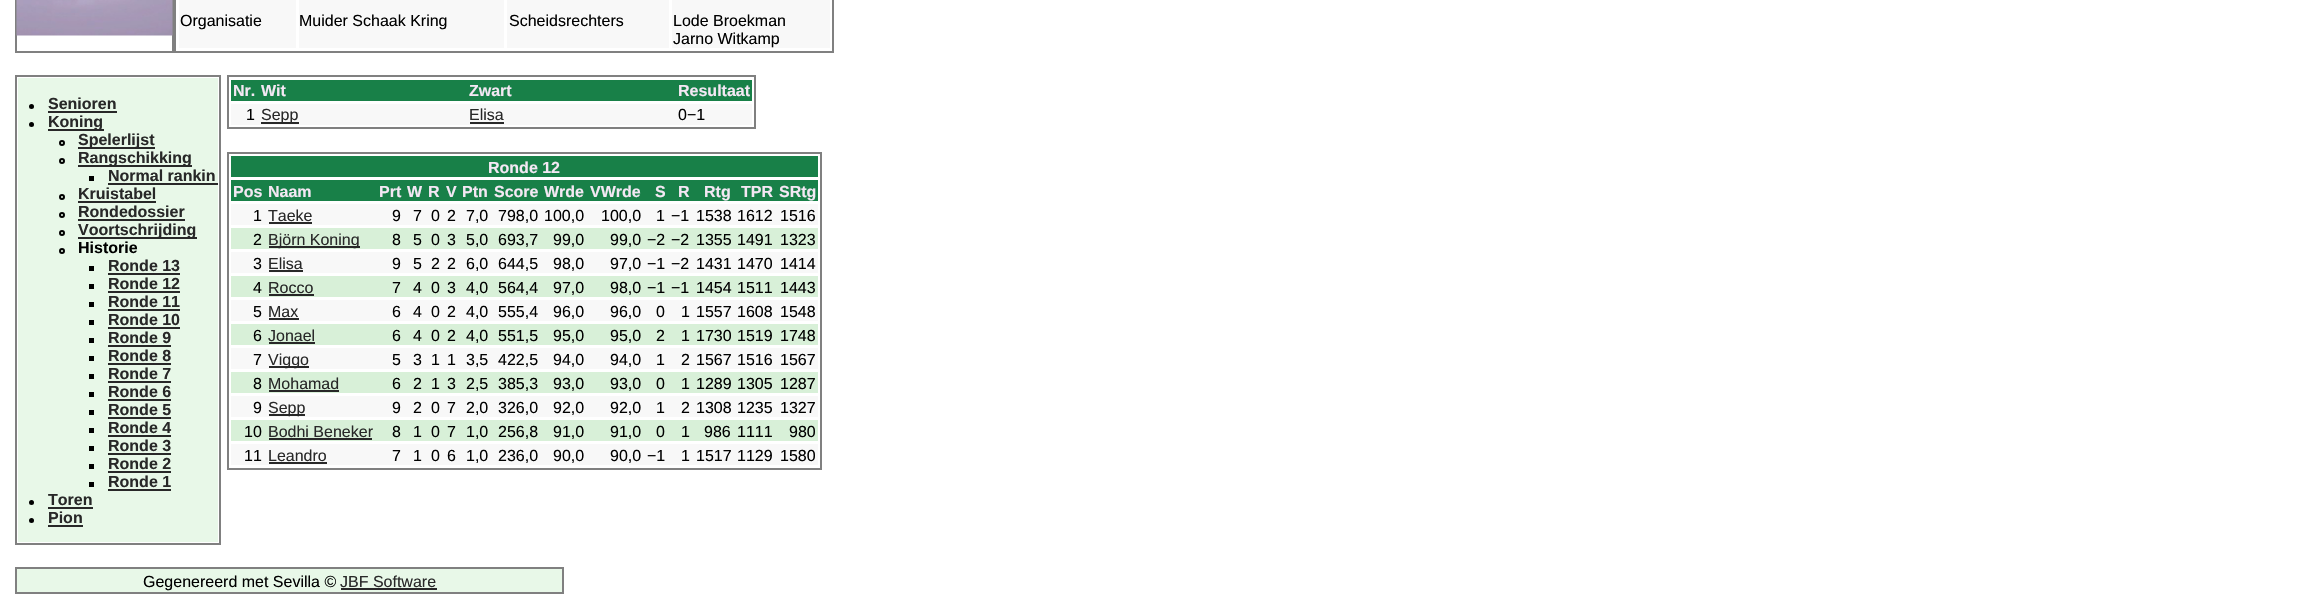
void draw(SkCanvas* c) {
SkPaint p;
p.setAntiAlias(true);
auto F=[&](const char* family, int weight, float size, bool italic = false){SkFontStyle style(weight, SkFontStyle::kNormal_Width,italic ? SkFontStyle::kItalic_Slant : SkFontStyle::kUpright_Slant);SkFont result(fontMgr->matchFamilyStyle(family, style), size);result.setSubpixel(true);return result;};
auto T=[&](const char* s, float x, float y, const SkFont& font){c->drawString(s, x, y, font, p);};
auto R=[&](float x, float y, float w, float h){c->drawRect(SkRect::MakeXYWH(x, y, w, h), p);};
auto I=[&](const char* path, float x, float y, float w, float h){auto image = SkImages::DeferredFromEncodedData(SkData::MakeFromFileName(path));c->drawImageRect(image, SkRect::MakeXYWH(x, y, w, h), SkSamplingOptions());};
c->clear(0xffffffff);
p.setStroke(true);
p.setStrokeWidth(2);
p.setColor(0xff808080);
c->drawRect(SkRect::MakeXYWH(16,-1,157,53),p);
I("1.png",16,0,157,36);
c->drawRect(SkRect::MakeXYWH(175,-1,658,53),p);
p.setStroke(false);
p.setColor(0xfff8f8f8);
R(179,0,117,48);
R(299,0,205,48);
R(507,0,162,48);
R(672,0,158,48);
auto f1 = F("Liberation Sans",400,16);
p.setColor(0xff000000);
T("Organisatie",180,26,f1);
T("Muider Schaak Kring",299,26,f1);
T("Scheidsrechters",509,26,f1);
T("Lode Broekman",673,26,f1);
T("Jarno Witkamp",673,44,f1);
p.setStroke(true);
p.setColor(0xff808080);
c->drawRect(SkRect::MakeXYWH(16,76,204,468),p);
p.setStroke(false);
p.setColor(0xffe8f8e8);
R(18,78,200,464);
p.setColor(0xff000000);
c->drawCircle(31.5,106.5,2.5,p);
auto f2 = F("Liberation Sans",700,16);
p.setColor(0xff282828);
T("Senioren",48,109,f2);
R(48,111,69,2);
p.setColor(0xff000000);
c->drawCircle(31.5,124.5,2.5,p);
p.setColor(0xff282828);
R(48,129,56,2);
T("Koning",48,127,f2);
p.setStroke(true);
p.setColor(0xff000000);
c->drawCircle(62,143,2,p);
p.setStroke(false);
p.setColor(0xff282828);
R(78,147,77,2);
T("Spelerlijst",78,145,f2);
p.setStroke(true);
p.setColor(0xff000000);
c->drawCircle(62,161,2,p);
p.setStroke(false);
p.setColor(0xff282828);
R(78,165,114,2);
T("Rangschikking",78,163,f2);
p.setColor(0xff000000);
R(89,176,5,5);
p.setColor(0xff282828);
T("Normal rankin",108,181,f2);
R(108,183,110,2);
p.setStroke(true);
p.setColor(0xff000000);
c->drawCircle(62,197,2,p);
p.setStroke(false);
p.setColor(0xff282828);
T("Kruistabel",78,199,f2);
R(78,201,78,2);
p.setStroke(true);
p.setColor(0xff000000);
c->drawCircle(62,215,2,p);
p.setStroke(false);
p.setColor(0xff282828);
T("Rondedossier",78,217,f2);
R(78,219,107,2);
p.setStroke(true);
p.setColor(0xff000000);
c->drawCircle(62,233,2,p);
p.setStroke(false);
p.setColor(0xff282828);
R(78,237,119,2);
T("Voortschrijding",78,235,f2);
p.setStroke(true);
p.setColor(0xff000000);
c->drawCircle(62,251,2,p);
p.setStroke(false);
T("Historie",78,253,f2);
R(89,266,5,5);
p.setColor(0xff282828);
T("Ronde 13",108,271,f2);
R(108,273,72,2);
p.setColor(0xff000000);
R(89,284,5,5);
p.setColor(0xff282828);
T("Ronde 12",108,289,f2);
R(108,291,72,2);
p.setColor(0xff000000);
R(89,302,5,5);
p.setColor(0xff282828);
T("Ronde 11",108,307,f2);
R(108,309,72,2);
p.setColor(0xff000000);
R(89,320,5,5);
p.setColor(0xff282828);
T("Ronde 10",108,325,f2);
R(108,327,72,2);
p.setColor(0xff000000);
R(89,338,5,5);
p.setColor(0xff282828);
T("Ronde 9",108,343,f2);
R(108,345,63,2);
p.setColor(0xff000000);
R(89,356,5,5);
p.setColor(0xff282828);
T("Ronde 8",108,361,f2);
R(108,363,63,2);
p.setColor(0xff000000);
R(89,374,5,5);
p.setColor(0xff282828);
T("Ronde 7",108,379,f2);
R(108,381,63,2);
p.setColor(0xff000000);
R(89,392,5,5);
p.setColor(0xff282828);
T("Ronde 6",108,397,f2);
R(108,399,63,2);
p.setColor(0xff000000);
R(89,410,5,5);
p.setColor(0xff282828);
T("Ronde 5",108,415,f2);
R(108,417,63,2);
p.setColor(0xff000000);
R(89,428,5,5);
p.setColor(0xff282828);
T("Ronde 4",108,433,f2);
R(108,435,63,2);
p.setColor(0xff000000);
R(89,446,5,5);
p.setColor(0xff282828);
T("Ronde 3",108,451,f2);
R(108,453,63,2);
p.setColor(0xff000000);
R(89,464,5,5);
p.setColor(0xff282828);
T("Ronde 2",108,469,f2);
R(108,471,63,2);
p.setColor(0xff000000);
R(89,482,5,5);
p.setColor(0xff282828);
T("Ronde 1",108,487,f2);
R(108,489,63,2);
p.setColor(0xff000000);
c->drawCircle(31.5,502.5,2.5,p);
p.setColor(0xff282828);
T("Toren",48,505,f2);
R(48,507,45,2);
p.setColor(0xff000000);
c->drawCircle(31.5,520.5,2.5,p);
p.setColor(0xff282828);
T("Pion",48,523,f2);
R(48,525,35,2);
p.setStroke(true);
p.setColor(0xff808080);
c->drawRect(SkRect::MakeXYWH(228,76,527,52),p);
p.setStroke(false);
p.setColor(0xff188048);
R(231,80,521,21);
p.setColor(0xfff4e8f4);
T("Nr.",233,96,f2);
T("Wit",261,96,f2);
T("Zwart",469,96,f2);
T("Resultaat",678,96,f2);
p.setColor(0xfff8f8f8);
R(231,104,521,21);
p.setColor(0xff000000);
T("1",246,120,f1);
p.setColor(0xff282828);
R(261,122,38,2);
T("Sepp",261,120,f1);
T("Elisa",469,120,f1);
R(470,122,34,2);
p.setColor(0xff000000);
T("0−1",678,120,f1);
p.setStroke(true);
p.setColor(0xff808080);
c->drawRect(SkRect::MakeXYWH(228,153,593,316),p);
p.setStroke(false);
p.setColor(0xff188048);
R(231,156,587,21);
p.setColor(0xfff4e8f4);
T("Ronde 12",488,173,f2);
p.setColor(0xff188048);
R(231,180,587,21);
p.setColor(0xfff4e8f4);
T("Pos",233,197,f2);
T("Naam",268,197,f2);
T("Prt",379,197,f2);
T("W",407,197,f2);
T("R",428,197,f2);
T("V",446,197,f2);
T("Ptn",462,197,f2);
T("Score",494,197,f2);
T("Wrde",544,197,f2);
T("VWrde",590,197,f2);
T("S",655,197,f2);
T("R",678,197,f2);
T("Rtg",704,197,f2);
T("TPR",741,197,f2);
T("SRtg",779,197,f2);
p.setColor(0xfff8f8f8);
R(231,204,587,21);
p.setColor(0xff000000);
T("1",253,221,f1);
p.setColor(0xff282828);
T("Taeke",268,221,f1);
R(269,222,43,2);
p.setColor(0xff000000);
T("9",392,221,f1);
T("7",413,221,f1);
T("0",431,221,f1);
T("2",447,221,f1);
T("7,0",466,221,f1);
T("798,0",498,221,f1);
T("100,0",544,221,f1);
T("100,0",601,221,f1);
T("1",656,221,f1);
T("−1",671,221,f1);
T("1538",696,221,f1);
T("1612",737,221,f1);
T("1516",780,221,f1);
p.setColor(0xffd8f0d8);
R(231,228,587,21);
p.setColor(0xff000000);
T("2",253,245,f1);
p.setColor(0xff282828);
R(269,246,91,2);
T("Björn Koning",268,245,f1);
p.setColor(0xff000000);
T("8",392,245,f1);
T("5",413,245,f1);
T("0",431,245,f1);
T("3",447,245,f1);
T("5,0",466,245,f1);
T("693,7",498,245,f1);
T("99,0",553,245,f1);
T("99,0",610,245,f1);
T("−2",647,245,f1);
T("−2",671,245,f1);
T("1355",696,245,f1);
T("1491",737,245,f1);
T("1323",780,245,f1);
p.setColor(0xfff8f8f8);
R(231,252,587,21);
p.setColor(0xff000000);
T("3",253,269,f1);
p.setColor(0xff282828);
T("Elisa",268,269,f1);
R(269,270,34,2);
p.setColor(0xff000000);
T("9",392,269,f1);
T("5",413,269,f1);
T("2",431,269,f1);
T("2",447,269,f1);
T("6,0",466,269,f1);
T("644,5",498,269,f1);
T("98,0",553,269,f1);
T("97,0",610,269,f1);
T("−1",647,269,f1);
T("−2",671,269,f1);
T("1431",696,269,f1);
T("1470",737,269,f1);
T("1414",780,269,f1);
p.setColor(0xffd8f0d8);
R(231,276,587,21);
p.setColor(0xff000000);
T("4",253,293,f1);
p.setColor(0xff282828);
T("Rocco",268,293,f1);
R(269,294,45,2);
p.setColor(0xff000000);
T("7",392,293,f1);
T("4",413,293,f1);
T("0",431,293,f1);
T("3",447,293,f1);
T("4,0",466,293,f1);
T("564,4",498,293,f1);
T("97,0",553,293,f1);
T("98,0",610,293,f1);
T("−1",647,293,f1);
T("−1",671,293,f1);
T("1454",696,293,f1);
T("1511",737,293,f1);
T("1443",780,293,f1);
p.setColor(0xfff8f8f8);
R(231,300,587,21);
p.setColor(0xff000000);
T("5",253,317,f1);
p.setColor(0xff282828);
T("Max",268,317,f1);
R(269,318,30,2);
p.setColor(0xff000000);
T("6",392,317,f1);
T("4",413,317,f1);
T("0",431,317,f1);
T("2",447,317,f1);
T("4,0",466,317,f1);
T("555,4",498,317,f1);
T("96,0",553,317,f1);
T("96,0",610,317,f1);
T("0",656,317,f1);
T("1",681,317,f1);
T("1557",696,317,f1);
T("1608",737,317,f1);
T("1548",780,317,f1);
p.setColor(0xffd8f0d8);
R(231,324,587,21);
p.setColor(0xff000000);
T("6",253,341,f1);
p.setColor(0xff282828);
T("Jonael",268,341,f1);
R(269,342,46,2);
p.setColor(0xff000000);
T("6",392,341,f1);
T("4",413,341,f1);
T("0",431,341,f1);
T("2",447,341,f1);
T("4,0",466,341,f1);
T("551,5",498,341,f1);
T("95,0",553,341,f1);
T("95,0",610,341,f1);
T("2",656,341,f1);
T("1",681,341,f1);
T("1730",696,341,f1);
T("1519",737,341,f1);
T("1748",780,341,f1);
p.setColor(0xfff8f8f8);
R(231,348,587,21);
p.setColor(0xff000000);
T("7",253,365,f1);
p.setColor(0xff282828);
R(269,366,40,2);
T("Viggo",268,365,f1);
p.setColor(0xff000000);
T("5",392,365,f1);
T("3",413,365,f1);
T("1",431,365,f1);
T("1",447,365,f1);
T("3,5",466,365,f1);
T("422,5",498,365,f1);
T("94,0",553,365,f1);
T("94,0",610,365,f1);
T("1",656,365,f1);
T("2",681,365,f1);
T("1567",696,365,f1);
T("1516",737,365,f1);
T("1567",780,365,f1);
p.setColor(0xffd8f0d8);
R(231,372,587,21);
p.setColor(0xff000000);
T("8",253,389,f1);
p.setColor(0xff282828);
T("Mohamad",268,389,f1);
R(269,390,70,2);
p.setColor(0xff000000);
T("6",392,389,f1);
T("2",413,389,f1);
T("1",431,389,f1);
T("3",447,389,f1);
T("2,5",466,389,f1);
T("385,3",498,389,f1);
T("93,0",553,389,f1);
T("93,0",610,389,f1);
T("0",656,389,f1);
T("1",681,389,f1);
T("1289",696,389,f1);
T("1305",737,389,f1);
T("1287",780,389,f1);
p.setColor(0xfff8f8f8);
R(231,396,587,21);
p.setColor(0xff000000);
T("9",253,413,f1);
p.setColor(0xff282828);
R(269,414,36,2);
T("Sepp",268,413,f1);
p.setColor(0xff000000);
T("9",392,413,f1);
T("2",413,413,f1);
T("0",431,413,f1);
T("7",447,413,f1);
T("2,0",466,413,f1);
T("326,0",498,413,f1);
T("92,0",553,413,f1);
T("92,0",610,413,f1);
T("1",656,413,f1);
T("2",681,413,f1);
T("1308",696,413,f1);
T("1235",737,413,f1);
T("1327",780,413,f1);
p.setColor(0xffd8f0d8);
R(231,420,587,21);
p.setColor(0xff000000);
T("10",244,437,f1);
p.setColor(0xff282828);
T("Bodhi Beneker",268,437,f1);
R(269,438,103,2);
p.setColor(0xff000000);
T("8",392,437,f1);
T("1",413,437,f1);
T("0",431,437,f1);
T("7",447,437,f1);
T("1,0",466,437,f1);
T("256,8",498,437,f1);
T("91,0",553,437,f1);
T("91,0",610,437,f1);
T("0",656,437,f1);
T("1",681,437,f1);
T("986",704,437,f1);
T("1111",737,437,f1);
T("980",789,437,f1);
p.setColor(0xfff8f8f8);
R(231,444,587,21);
p.setColor(0xff000000);
T("11",244,461,f1);
p.setColor(0xff282828);
T("Leandro",268,461,f1);
R(269,462,58,2);
p.setColor(0xff000000);
T("7",392,461,f1);
T("1",413,461,f1);
T("0",431,461,f1);
T("6",447,461,f1);
T("1,0",466,461,f1);
T("236,0",498,461,f1);
T("90,0",553,461,f1);
T("90,0",610,461,f1);
T("−1",647,461,f1);
T("1",681,461,f1);
T("1517",696,461,f1);
T("1129",737,461,f1);
T("1580",780,461,f1);
p.setColor(0xffe8f8e8);
c->drawRect(SkRect::MakeXYWH(16,568,547,25),p);
p.setStroke(true);
p.setColor(0xff808080);
c->drawRect(SkRect::MakeXYWH(16,568,547,25),p);
p.setStroke(false);
p.setColor(0xff000000);
T("Gegenereerd met Sevilla ©",143,587,f1);
p.setColor(0xff282828);
T("JBF Software",340,587,f1);
R(341,588,96,2);
}
